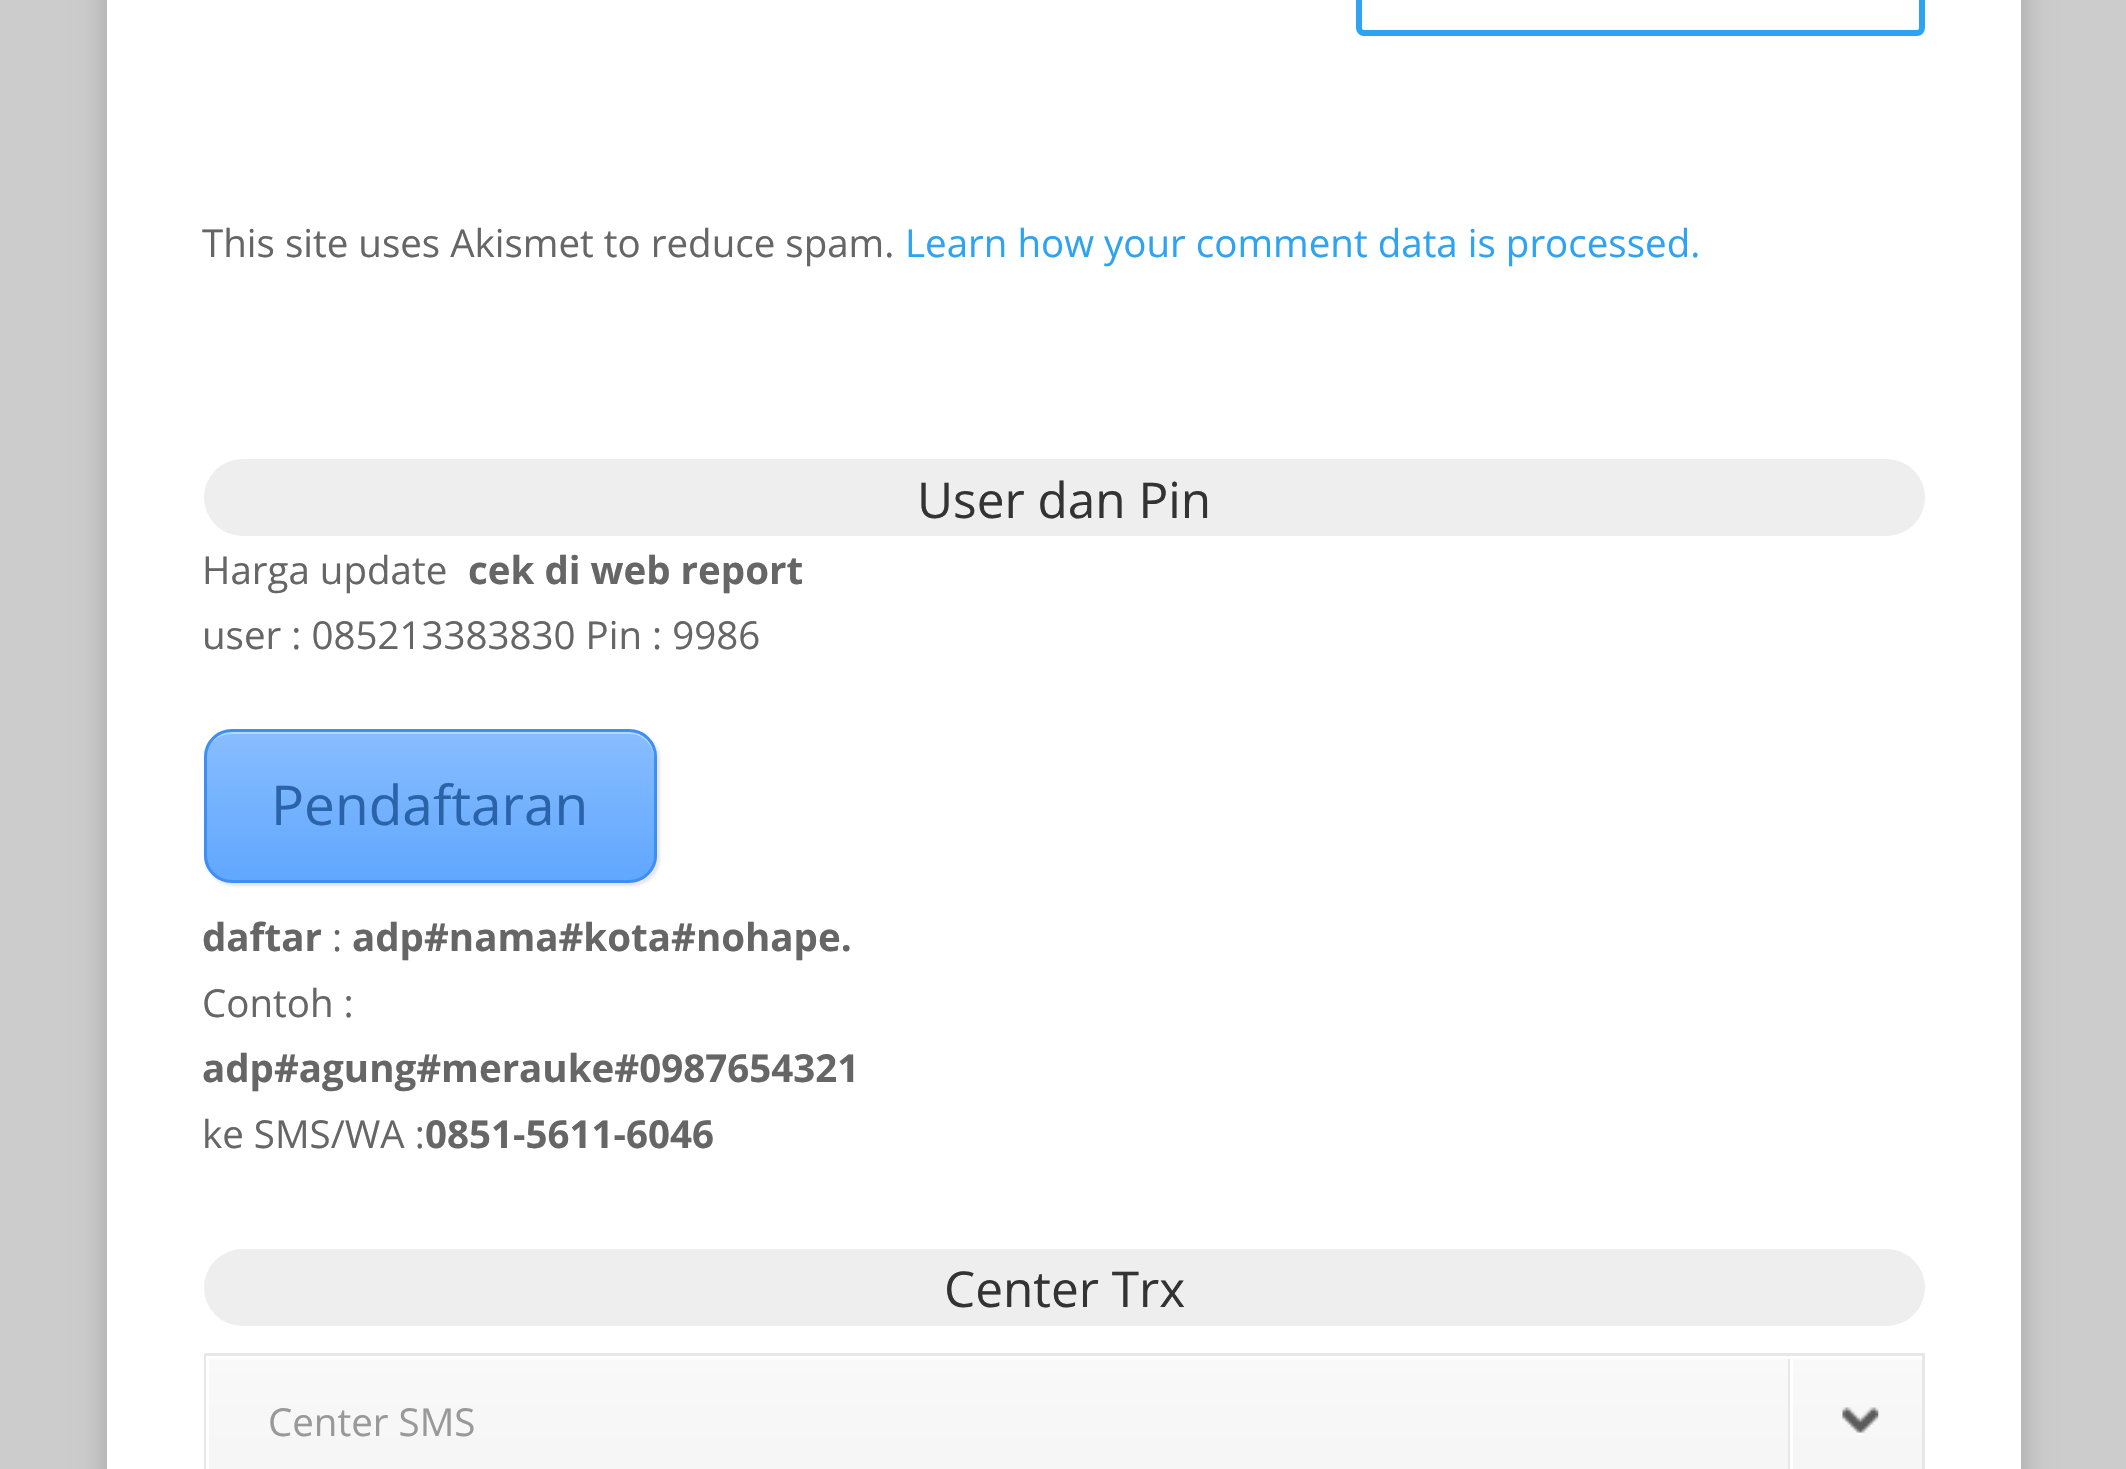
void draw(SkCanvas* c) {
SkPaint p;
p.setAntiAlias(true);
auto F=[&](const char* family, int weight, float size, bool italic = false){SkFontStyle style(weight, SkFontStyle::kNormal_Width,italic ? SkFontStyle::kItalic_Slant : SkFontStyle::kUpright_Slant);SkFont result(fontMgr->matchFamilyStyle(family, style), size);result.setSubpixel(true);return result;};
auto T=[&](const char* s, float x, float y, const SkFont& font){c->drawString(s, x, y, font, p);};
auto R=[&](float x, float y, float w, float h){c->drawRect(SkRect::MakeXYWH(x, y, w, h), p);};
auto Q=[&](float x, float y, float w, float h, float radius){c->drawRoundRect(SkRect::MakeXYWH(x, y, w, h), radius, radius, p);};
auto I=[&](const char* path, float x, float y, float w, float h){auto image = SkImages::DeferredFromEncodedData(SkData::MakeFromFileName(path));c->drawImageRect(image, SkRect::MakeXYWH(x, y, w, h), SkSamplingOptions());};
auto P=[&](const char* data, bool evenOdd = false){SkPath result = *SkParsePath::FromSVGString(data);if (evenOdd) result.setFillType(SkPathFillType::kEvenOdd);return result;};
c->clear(0xffcccccc);
p.setColor(0x33000000);
p.setMaskFilter(SkMaskFilter::MakeBlur(kNormal_SkBlurStyle, 14));
c->drawRect(SkRect::MakeXYWH(107,-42,1914,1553),p);
p.setMaskFilter(nullptr);
p.setColor(0xffffffff);
R(107,0,1914,1469);
p.setStroke(true);
p.setStrokeWidth(6);
p.setColor(0xff2ea3f2);
c->drawRoundRect(SkRect::MakeXYWH(1359,-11,563,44),5,5,p);
auto f1 = F("Open Sans",400,38.5);
p.setStroke(false);
p.setColor(0xff666666);
T("This site uses Akismet to reduce spam.",202,257,f1);
p.setColor(0xff2ea3f2);
T("Learn how your comment data is processed.",905,257,f1);
p.setColor(0xffeeeeee);
Q(204,459,1721,77,38.5);
auto f2 = F("Open Sans",400,49.5);
p.setColor(0xff333333);
T("User dan Pin",917,518,f2);
p.setColor(0xff666666);
T("Harga update",202,584,f1);
auto f3 = F("Open Sans",700,38.5);
T("cek di web report",468,584,f3);
T("user : 085213383830 Pin : 9986",202,649,f1);
p.setColor(0x1a000000);
p.setMaskFilter(SkMaskFilter::MakeBlur(kNormal_SkBlurStyle, 1.5));
c->drawRoundRect(SkRect::MakeXYWH(206,732,454,154),28,28,p);
p.setMaskFilter(nullptr);
c->save();
c->clipPath(P("M232 729h397c15.5 0 28 12.5 28 28v98c0 15.5-12.5 28-28 28h-397c-15.5 0-28-12.5-28-28v-98c0-15.5 12.5-28 28-28z"),true);
{
const SkColor colors[] = {0xff88bdff,0xff60a7ff};
const float stops[] = {0,1};
const SkPoint ends[] = {{430,732}, {430,880}};
p.setShader(SkGradientShader::MakeLinear(ends, colors, stops, 2, SkTileMode::kClamp));
p.setAlpha(255);
}
R(204,732,453,148);
c->restore();
p.setShader(nullptr);
p.setColor(0x66ffffff);
c->drawPath(P("M231 734h399c13 0 24 11 24 25v99l-1 6c1-3 2-6 2-9v-98c0-14-11-25-25-25h-399c-14 0-25 11-25 25v2c0-14 11-25 25-25z"),p);
p.setStroke(true);
p.setStrokeWidth(3);
p.setColor(0xff3e8ff4);
c->drawRoundRect(SkRect::MakeXYWH(205.5,730.5,450,151),26.5,26.5,p);
auto f4 = F("Open Sans",400,55);
p.setStroke(false);
p.setColor(0xff2b63a8);
T("Pendaftaran",271,825,f4);
p.setColor(0xff666666);
T("daftar",202,951,f3);
T(":",332,951,f1);
T("adp#nama#kota#nohape.",352,951,f3);
T("Contoh :",202,1017,f1);
T("adp#agung#merauke#0987654321",202,1082,f3);
T("ke SMS/WA :",202,1148,f1);
T("0851-5611-6046",425,1148,f3);
p.setColor(0xffeeeeee);
Q(204,1249,1721,77,38.5);
p.setColor(0xff333333);
T("Center Trx",944,1307,f2);
p.setStroke(true);
p.setColor(0xffe7e7e7);
c->drawRect(SkRect::MakeXYWH(205.5,1354.5,1718,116),p);
p.setStroke(false);
{
const SkColor colors[] = {0xfff9f9f9,0xfff5f5f5};
const float stops[] = {0,1};
const SkPoint ends[] = {{1066,1358}, {1066,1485}};
p.setShader(SkGradientShader::MakeLinear(ends, colors, stops, 2, SkTileMode::kClamp));
p.setAlpha(255);
}
R(209,1359,1713,110);
p.setShader(nullptr);
p.setColor(0xffffffff);
R(206,1356,1,113);
p.setColor(0xff999999);
T("Center SMS",268,1436,f1);
p.setColor(0xffe7e7e7);
R(1788,1359,2,110);
p.setColor(0xffffffff);
R(1790,1359,3,110);
I("1.png",1842,1407,37,28);
}
